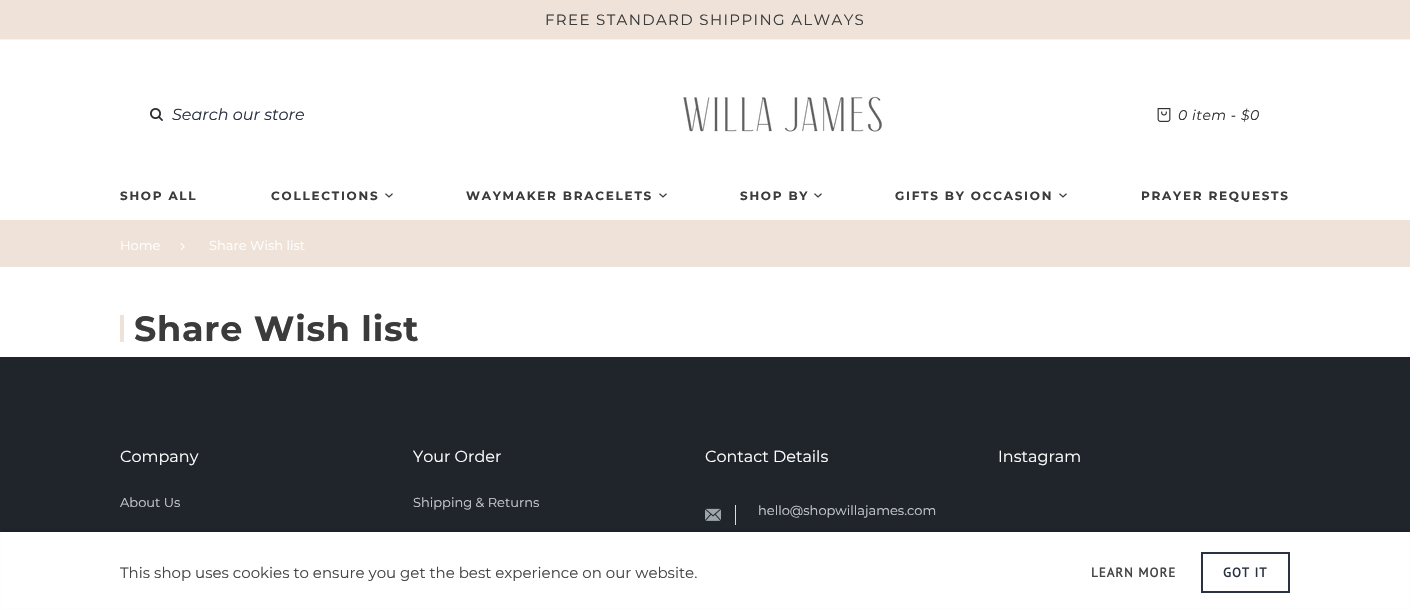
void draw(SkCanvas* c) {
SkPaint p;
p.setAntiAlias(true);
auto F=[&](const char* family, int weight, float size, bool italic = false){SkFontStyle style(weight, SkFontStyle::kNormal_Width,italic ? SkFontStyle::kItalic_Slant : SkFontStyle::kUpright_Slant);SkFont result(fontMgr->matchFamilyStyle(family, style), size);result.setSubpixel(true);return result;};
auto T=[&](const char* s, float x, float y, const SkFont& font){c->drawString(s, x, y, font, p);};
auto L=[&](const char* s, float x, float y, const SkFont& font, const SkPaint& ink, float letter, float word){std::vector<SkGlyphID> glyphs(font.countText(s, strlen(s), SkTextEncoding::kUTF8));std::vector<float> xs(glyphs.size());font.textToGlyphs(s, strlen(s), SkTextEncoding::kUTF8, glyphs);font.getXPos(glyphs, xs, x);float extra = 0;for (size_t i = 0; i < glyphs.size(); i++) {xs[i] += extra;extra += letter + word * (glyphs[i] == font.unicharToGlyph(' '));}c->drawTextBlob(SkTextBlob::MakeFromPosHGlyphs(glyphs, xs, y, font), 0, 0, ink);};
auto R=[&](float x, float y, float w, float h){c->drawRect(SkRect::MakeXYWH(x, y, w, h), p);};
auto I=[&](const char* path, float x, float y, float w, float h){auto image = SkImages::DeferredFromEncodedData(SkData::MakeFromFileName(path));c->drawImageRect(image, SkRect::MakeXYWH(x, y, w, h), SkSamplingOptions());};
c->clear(0xffffffff);
p.setColor(0xfff4f4f4);
R(0,39,1410,1);
p.setColor(0xffefe3d9);
R(0,0,1410,39);
auto f1 = F("Montserrat",400,15);
p.setColor(0xff3b3b3b);
L("FREE STANDARD SHIPPING ALWAYS",545,25,f1,p,1.35,0);
I("1.png",150,108,13,13);
auto f2 = F("Montserrat",400,16,true);
p.setColor(0xff293242);
T("Search our store",172,120,f2);
I("2.png",683,96,199,36);
I("3.png",1157,108,14,14);
auto f3 = F("Montserrat",400,14,true);
p.setColor(0xff313234);
L("0 item - $0",1178,120,f3,p,.5,0);
auto f4 = F("Montserrat",700,12);
p.setColor(0xff3b3b3b);
L("SHOP ALL",120,200,f4,p,1.75,0);
L("COLLECTIONS",271,200,f4,p,1.75,0);
I("4.png",385,193,8,5);
L("WAYMAKER BRACELETS",466,200,f4,p,1.75,0);
I("4.png",659,193,8,5);
L("SHOP BY",740,200,f4,p,1.75,0);
I("4.png",814,193,8,5);
L("GIFTS BY OCCASION",895,200,f4,p,1.75,0);
I("4.png",1059,193,8,5);
L("PRAYER REQUESTS",1141,200,f4,p,1.75,0);
p.setColor(0xffefe3d9);
R(0,220,1410,47);
auto f5 = F("Montserrat",400,13);
p.setColor(0xffffffff);
T("Home",120,250,f5);
I("5.png",180,243,5,7);
T("Share Wish list",209,250,f5);
p.setColor(0xffefe3d9);
R(120,315,4,27);
auto f6 = F("Montserrat",700,35);
p.setColor(0xff3b3b3b);
L("Share Wish list",134,341,f6,p,.75,0);
p.setColor(0xff20242b);
R(0,357,1410,175);
auto f7 = F("Montserrat",400,16);
p.setColor(0xffffffff);
T("Company",120,462,f7);
p.setColor(0xffc9cbd0);
T("About Us",120,507,f5);
p.setColor(0xffffffff);
T("Your Order",413,462,f7);
p.setColor(0xffc9cbd0);
T("Shipping & Returns",413,507,f5);
p.setColor(0xffffffff);
T("Contact Details",705,462,f7);
p.setColor(0xffd8dee2);
R(735,505,1,20);
I("6.png",705,508,16,13);
p.setColor(0xffc9cbd0);
T("hello@shopwillajames.com",758,515,f5);
p.setColor(0xffffffff);
T("Instagram",998,462,f7);
p.setColor(0x1a000000);
p.setMaskFilter(SkMaskFilter::MakeBlur(kNormal_SkBlurStyle, 1));
c->drawRect(SkRect::MakeXYWH(2,530,1406,77),p);
p.setMaskFilter(nullptr);
p.setColor(0xffffffff);
R(1,532,1408,76);
p.setColor(0xff444645);
T("This shop uses cookies to ensure you get the best experience on our website.",120,578,f1);
auto f8 = F("PT Sans",700,13);
L("LEARN MORE",1091,577,f8,p,1,0);
p.setStroke(true);
p.setStrokeWidth(2);
p.setColor(0xff293242);
c->drawRect(SkRect::MakeXYWH(1202,553,87,39),p);
p.setStroke(false);
L("GOT IT",1223,577,f8,p,1,0);
}
